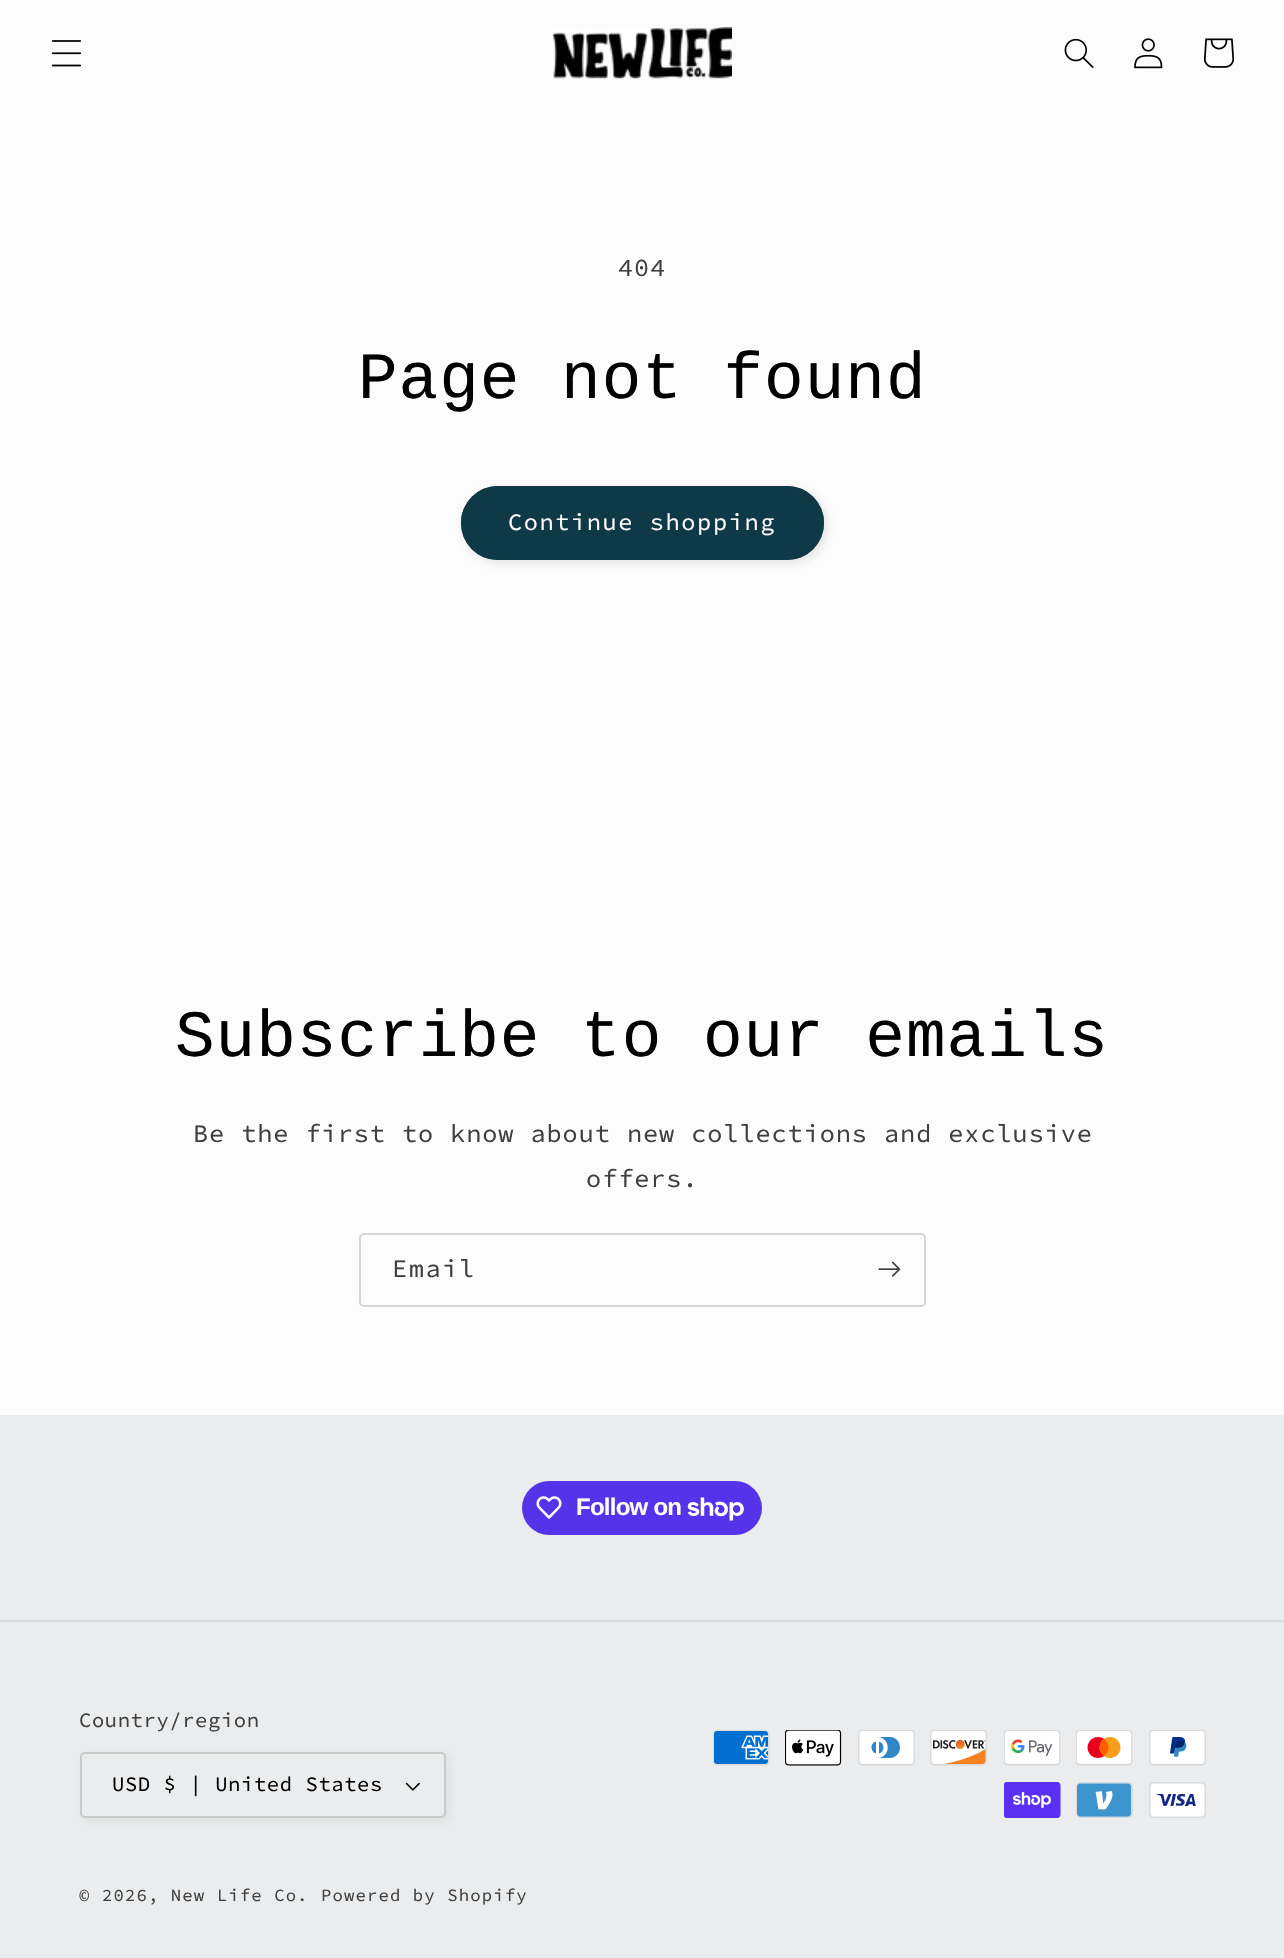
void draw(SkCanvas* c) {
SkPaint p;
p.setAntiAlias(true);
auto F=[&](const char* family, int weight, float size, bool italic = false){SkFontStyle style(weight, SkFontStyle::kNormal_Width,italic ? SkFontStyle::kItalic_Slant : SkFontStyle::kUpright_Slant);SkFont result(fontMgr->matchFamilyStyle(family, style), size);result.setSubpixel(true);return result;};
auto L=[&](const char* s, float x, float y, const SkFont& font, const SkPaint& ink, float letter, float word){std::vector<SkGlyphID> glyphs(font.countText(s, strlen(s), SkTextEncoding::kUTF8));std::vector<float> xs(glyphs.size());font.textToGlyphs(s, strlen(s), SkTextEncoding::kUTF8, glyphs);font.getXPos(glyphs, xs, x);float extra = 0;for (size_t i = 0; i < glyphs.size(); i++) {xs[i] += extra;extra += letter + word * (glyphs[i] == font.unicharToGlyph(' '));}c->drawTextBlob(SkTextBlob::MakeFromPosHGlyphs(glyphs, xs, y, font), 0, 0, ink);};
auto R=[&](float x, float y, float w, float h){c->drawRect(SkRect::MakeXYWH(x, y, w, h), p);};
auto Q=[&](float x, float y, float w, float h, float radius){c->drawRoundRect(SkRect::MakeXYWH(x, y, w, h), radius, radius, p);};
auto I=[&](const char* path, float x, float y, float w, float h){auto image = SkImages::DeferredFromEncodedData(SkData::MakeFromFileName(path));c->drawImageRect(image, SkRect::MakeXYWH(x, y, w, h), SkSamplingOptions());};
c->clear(0xfffcfcfc);
I("1.png",51,40,31,27);
I("2.png",552,27,180,52);
I("3.png",1064,38,30,30);
I("4.png",1134,38,29,31);
I("5.png",1204,38,31,30);
auto f1 = F("Source Code Pro",400,25.2);
p.setColor(0xff3f3f3f);
L("404",618,276,f1,p,.95,0);
auto f2 = F("Liberation Mono",400,66);
p.setColor(0xff000000);
L("Page not found",358,398,f2,p,1,0);
p.setColor(0x1a000000);
p.setMaskFilter(SkMaskFilter::MakeBlur(kNormal_SkBlurStyle, 4));
c->drawRoundRect(SkRect::MakeXYWH(464,489,363,74),37,37,p);
p.setMaskFilter(nullptr);
p.setColor(0xff103948);
Q(461,486,363,74,37);
p.setStroke(true);
p.setStrokeWidth(2);
c->drawRoundRect(SkRect::MakeXYWH(462,487,361,72),36,36,p);
auto f3 = F("Source Code Pro",400,23.6);
p.setStroke(false);
p.setColor(0xfffcfcfc);
L("Continue shopping",508,530,f3,p,1.6,0);
p.setColor(0xff000000);
L("Subscribe to our emails",175,1056,f2,p,1,0);
p.setColor(0xff3f3f3f);
L("Be the first to know about new collections and exclusive",193,1142,f1,p,.95,0);
L("offers.",586,1187,f1,p,.95,0);
p.setStroke(true);
p.setColor(0x26000000);
c->drawRoundRect(SkRect::MakeXYWH(360,1234,565,72),4,4,p);
p.setStroke(false);
p.setColor(0xff3f3f3f);
L("Email",392,1277,f1,p,1.6,0);
I("6.png",878,1261,23,16);
p.setColor(0xffebeced);
R(0,1415,1284,543);
p.setColor(0xff5433eb);
Q(522,1481,240,54,27);
I("7.png",536,1496,26,23);
auto f4 = F("Liberation Sans",700,24);
p.setColor(0xfffcfcfc);
L("Follow on",576,1515,f4,p,-.75,0);
I("8.png",687,1497,57,24);
p.setColor(0xffd8d9da);
R(0,1620,1284,2);
auto f5 = F("Source Code Pro",400,20.5);
p.setColor(0xff3f3f3f);
L("Country/region",79,1727,f5,p,.6,0);
p.setColor(0x0d000000);
p.setMaskFilter(SkMaskFilter::MakeBlur(kNormal_SkBlurStyle, 4));
c->drawRoundRect(SkRect::MakeXYWH(83,1755,366,66),5,5,p);
p.setMaskFilter(nullptr);
p.setColor(0xffebeced);
Q(80,1752,366,66,5);
I("9.png",405,1782,15,9);
p.setStroke(true);
p.setColor(0x26000000);
c->drawRoundRect(SkRect::MakeXYWH(81,1753,364,64),4,4,p);
p.setStroke(false);
p.setColor(0xff000000);
L("USD $ | United States",112,1791,f5,p,.6,0);
I("10.png",713,1730,57,36);
I("11.png",785,1730,57,36);
I("12.png",858,1730,57,36);
I("13.png",930,1730,57,36);
I("14.png",1004,1730,57,36);
I("15.png",1076,1730,57,36);
I("16.png",1149,1730,57,36);
I("17.png",1004,1782,57,36);
I("18.png",1076,1782,57,36);
I("19.png",1149,1782,57,36);
auto f6 = F("Source Code Pro",400,17.3);
p.setColor(0xff3f3f3f);
L("© 2026, New Life Co.",79,1901,f6,p,1.1,0);
L("Powered by Shopify",321,1901,f6,p,1.1,0);
}
